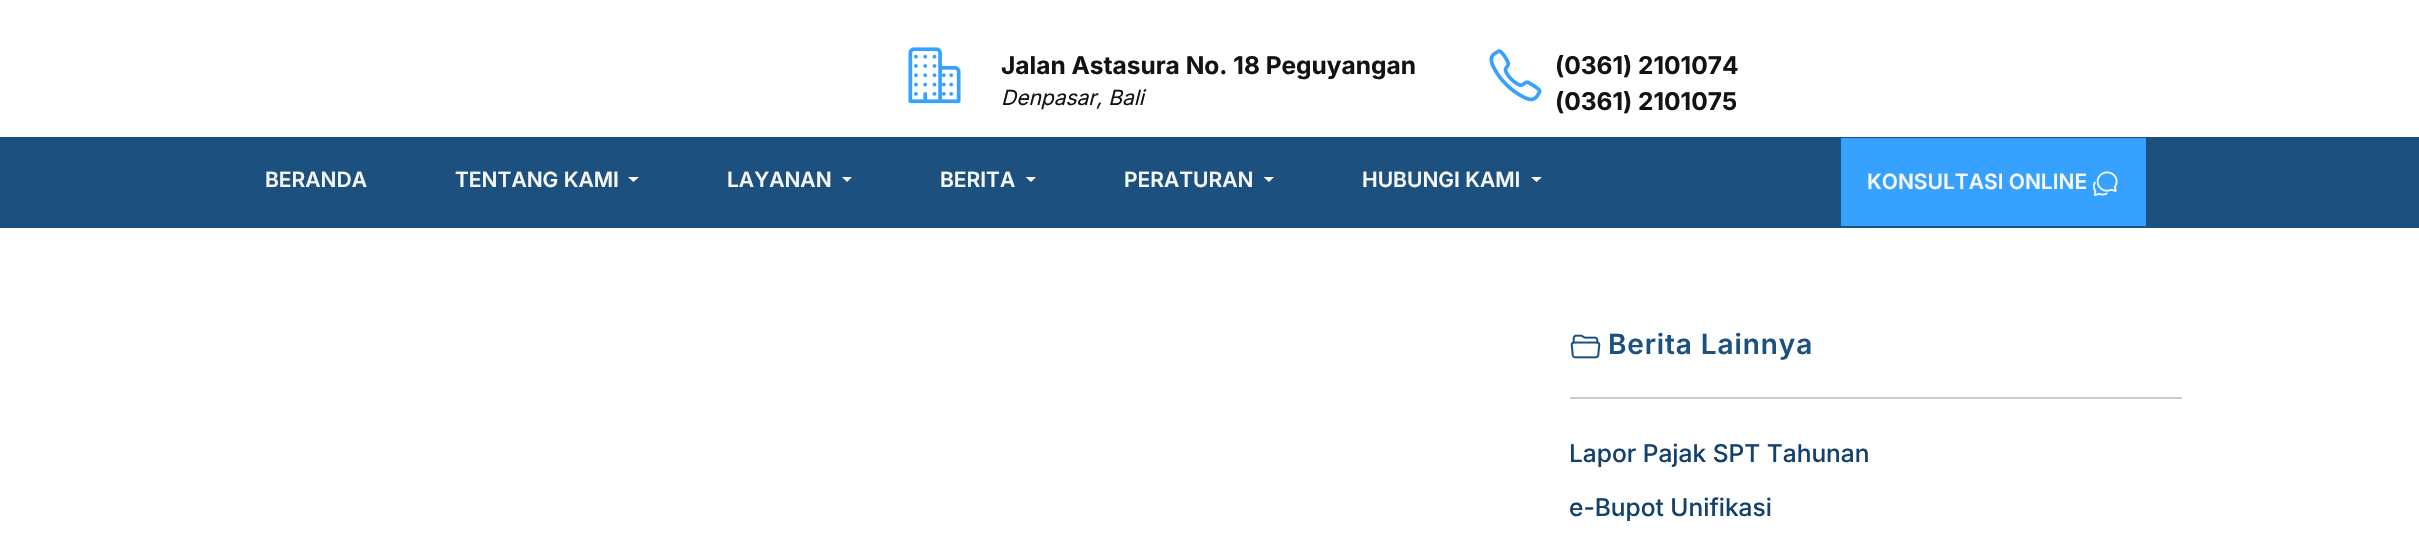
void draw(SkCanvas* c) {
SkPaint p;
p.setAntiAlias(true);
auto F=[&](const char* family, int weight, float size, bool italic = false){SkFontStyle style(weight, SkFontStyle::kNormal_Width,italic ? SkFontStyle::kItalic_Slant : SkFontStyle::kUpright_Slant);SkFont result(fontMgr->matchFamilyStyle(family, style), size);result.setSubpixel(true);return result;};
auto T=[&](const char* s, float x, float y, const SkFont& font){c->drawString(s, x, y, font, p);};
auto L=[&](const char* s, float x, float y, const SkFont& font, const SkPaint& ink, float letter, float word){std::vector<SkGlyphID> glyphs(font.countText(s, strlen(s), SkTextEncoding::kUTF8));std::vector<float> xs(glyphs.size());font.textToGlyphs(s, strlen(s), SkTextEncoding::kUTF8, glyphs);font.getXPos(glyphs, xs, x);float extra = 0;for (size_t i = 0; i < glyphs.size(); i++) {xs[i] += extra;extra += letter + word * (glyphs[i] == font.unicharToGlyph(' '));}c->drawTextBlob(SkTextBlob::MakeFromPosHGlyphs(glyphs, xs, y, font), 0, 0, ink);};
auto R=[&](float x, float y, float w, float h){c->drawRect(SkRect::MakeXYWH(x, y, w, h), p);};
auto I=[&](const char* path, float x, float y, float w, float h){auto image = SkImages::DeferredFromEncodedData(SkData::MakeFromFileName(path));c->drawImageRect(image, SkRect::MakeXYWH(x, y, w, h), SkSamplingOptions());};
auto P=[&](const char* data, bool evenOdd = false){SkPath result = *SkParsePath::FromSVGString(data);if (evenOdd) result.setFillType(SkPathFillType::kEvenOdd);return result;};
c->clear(0xffffffff);
I("1.png",908,47,53,57);
auto f1 = F("Inter",700,24.5);
p.setColor(0xff131313);
T("Jalan Astasura No. 18 Peguyangan",1001,74,f1);
auto f2 = F("Inter",400,21,true);
T("Denpasar, Bali",1001,105,f2);
I("2.png",1489,49,53,53);
T("(0361) 2101074",1555,74,f1);
T("(0361) 2101075",1555,110,f1);
p.setColor(0xff1b507f);
R(0,137,2419,91);
auto f3 = F("Inter",600,21);
p.setColor(0xfff7f7f7);
T("BERANDA",265,187,f3);
T("TENTANG KAMI",455,187,f3);
c->drawPath(P("M628 177h11l-5.5 5z"),p);
T("LAYANAN",727,187,f3);
c->drawPath(P("M842 177h10l-5 5z"),p);
T("BERITA",940,187,f3);
c->drawPath(P("M1025.5 177h10.5l-5 5z"),p);
T("PERATURAN",1124,187,f3);
c->drawPath(P("M1263.5 177h10.5l-5 5z"),p);
T("HUBUNGI KAMI",1362,187,f3);
c->drawPath(P("M1531 177h11l-5.5 5z"),p);
p.setColor(0xff36a1ff);
R(1841,138,305,88);
p.setColor(0xfff7f7f7);
T("KONSULTASI ONLINE",1867,189,f3);
I("3.png",2093,171,25,25);
p.setColor(0xffcccccc);
R(1570,397,612,2);
I("4.png",1570,334,31,25);
auto f4 = F("Inter",600,28);
p.setColor(0xff1b507f);
L("Berita Lainnya",1608,354,f4,p,.9,0);
auto f5 = F("Inter",500,24.5);
p.setColor(0xff12416b);
T("Lapor Pajak SPT Tahunan",1569,462,f5);
T("e-Bupot Unifikasi",1569,516,f5);
}
